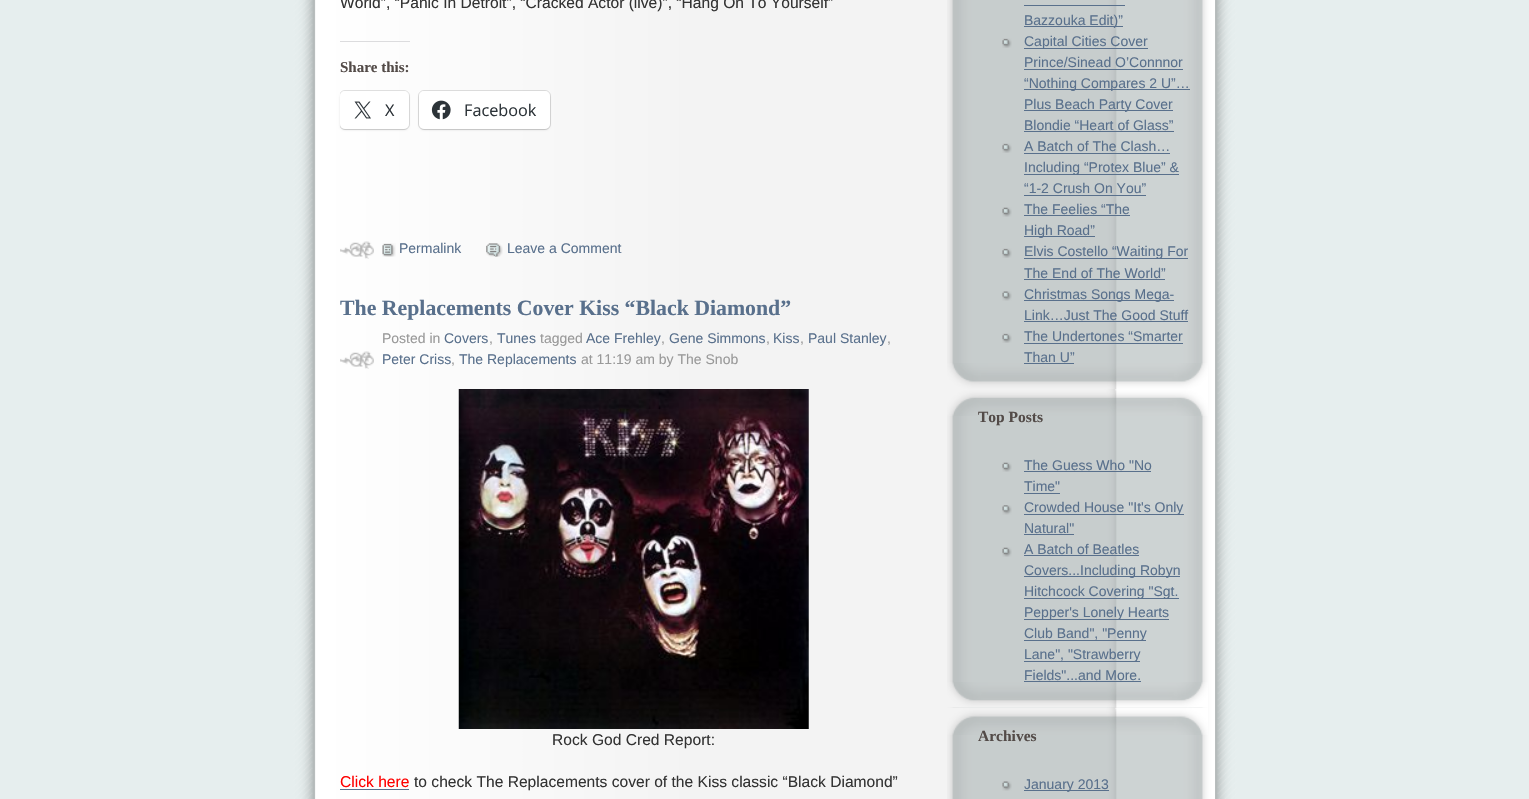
void draw(SkCanvas* c) {
SkPaint p;
p.setAntiAlias(true);
auto F=[&](const char* family, int weight, float size, bool italic = false){SkFontStyle style(weight, SkFontStyle::kNormal_Width,italic ? SkFontStyle::kItalic_Slant : SkFontStyle::kUpright_Slant);SkFont result(fontMgr->matchFamilyStyle(family, style), size);result.setSubpixel(true);return result;};
auto T=[&](const char* s, float x, float y, const SkFont& font){c->drawString(s, x, y, font, p);};
auto R=[&](float x, float y, float w, float h){c->drawRect(SkRect::MakeXYWH(x, y, w, h), p);};
auto Q=[&](float x, float y, float w, float h, float radius){c->drawRoundRect(SkRect::MakeXYWH(x, y, w, h), radius, radius, p);};
auto I=[&](const char* path, float x, float y, float w, float h){auto image = SkImages::DeferredFromEncodedData(SkData::MakeFromFileName(path));c->drawImageRect(image, SkRect::MakeXYWH(x, y, w, h), SkSamplingOptions());};
c->clear(0xffe6eeee);
I("1.png",290,0,950,799);
auto f1 = F("Liberation Sans",400,15.6);
p.setColor(0xff333333);
T("World”, “Panic In Detroit”, “Cracked Actor (live)”, “Hang On To Yourself”",340,8,f1);
p.setColor(0xffdcdcde);
R(340,41,70,1);
auto f2 = F("Liberation Serif",700,15);
p.setColor(0xff534b48);
T("Share this:",340,72,f2);
c->save();
c->clipRect(SkRect::MakeXYWH(340,0,588,276));
p.setStroke(true);
p.setStrokeWidth(1);
p.setColor(0xffdfdfdf);
c->drawRoundRect(SkRect::MakeXYWH(339.5,90.5,70,39),5.5,5.5,p);
c->restore();
p.setStroke(false);
p.setColor(0x1f000000);
p.setMaskFilter(SkMaskFilter::MakeBlur(kNormal_SkBlurStyle, 1));
c->drawRoundRect(SkRect::MakeXYWH(340,93,69,37),5,5,p);
p.setMaskFilter(nullptr);
p.setColor(0xffffffff);
Q(340,91,69,38,5);
I("2.png",354,101,17,18);
auto f3 = F("Open Sans",400,16.25);
p.setColor(0xff2c3338);
T("X",385,116,f3);
p.setStroke(true);
p.setColor(0x1f000000);
c->drawRoundRect(SkRect::MakeXYWH(418.5,90.5,132,39),5.5,5.5,p);
p.setStroke(false);
p.setMaskFilter(SkMaskFilter::MakeBlur(kNormal_SkBlurStyle, 1));
c->drawRoundRect(SkRect::MakeXYWH(419,93,131,37),5,5,p);
p.setMaskFilter(nullptr);
p.setColor(0xffffffff);
Q(419,91,131,38,5);
I("3.png",431,100,20,20);
p.setColor(0xff2c3338);
T("Facebook",464,116,f3);
I("4.png",340,241,34,18);
I("5.png",382,243,14,14);
auto f4 = F("Liberation Sans",400,14);
p.setColor(0xff59708c);
T("Permalink",399,253,f4);
I("6.png",486,243,17,14);
T("Leave a Comment",507,253,f4);
auto f5 = F("Liberation Serif",700,21.8);
T("The Replacements Cover Kiss “Black Diamond”",340,315,f5);
I("4.png",340,351,34,18);
p.setColor(0xff999999);
T("Posted in",382,343,f4);
p.setColor(0xff59708c);
T("Covers",444,343,f4);
p.setColor(0xff999999);
T(",",489,343,f4);
p.setColor(0xff59708c);
T("Tunes",497,343,f4);
p.setColor(0xff999999);
T("tagged",540,343,f4);
p.setColor(0xff59708c);
T("Ace Frehley",586,343,f4);
p.setColor(0xff999999);
T(",",661,343,f4);
p.setColor(0xff59708c);
T("Gene Simmons",669,343,f4);
p.setColor(0xff999999);
T(",",766,343,f4);
p.setColor(0xff59708c);
T("Kiss",773,343,f4);
p.setColor(0xff999999);
T(",",800,343,f4);
p.setColor(0xff59708c);
T("Paul Stanley",808,343,f4);
p.setColor(0xff999999);
T(",",887,343,f4);
p.setColor(0xff59708c);
T("Peter Criss",382,364,f4);
p.setColor(0xff999999);
T(",",451,364,f4);
p.setColor(0xff59708c);
T("The Replacements",459,364,f4);
p.setColor(0xff999999);
T("at 11:19 am by The Snob",581,364,f4);
I("7.png",458,389,351,340);
p.setColor(0xff333333);
T("Rock God Cred Report:",552,745,f1);
p.setColor(0xffff0000);
T("Click here",340,787,f1);
p.setColor(0xff59708c);
R(340,789,69,1);
p.setColor(0xff333333);
T("to check The Replacements cover of the Kiss classic “Black Diamond”",414,787,f1);
I("8.png",947,0,268,799);
I("9.png",947,363,261,26);
p.setColor(0xff59708c);
R(1024,26,99,1);
T("Bazzouka Edit)”",1024,25,f4);
R(1024,5,101,1);
I("10.png",1002,38,10,10);
R(1024,48,124,1);
T("Capital Cities Cover",1024,46,f4);
T("Prince/Sinead O’Connnor",1024,67,f4);
R(1024,69,159,1);
R(1024,89,166,1);
T("“Nothing Compares 2 U”…",1024,88,f4);
R(1024,110,149,1);
T("Plus Beach Party Cover",1024,109,f4);
T("Blondie “Heart of Glass”",1024,130,f4);
R(1024,131,150,1);
I("10.png",1002,143,10,10);
T("A Batch of The Clash…",1024,151,f4);
R(1024,153,146,1);
R(1024,174,155,1);
T("Including “Protex Blue” &",1024,172,f4);
T("“1-2 Crush On You”",1024,193,f4);
R(1024,195,122,1);
I("11.png",1002,207,10,10);
T("The Feelies “The",1024,214,f4);
R(1024,215,106,1);
R(1024,236,71,1);
T("High Road”",1024,235,f4);
I("10.png",1002,248,10,10);
R(1024,258,164,1);
T("Elvis Costello “Waiting For",1024,256,f4);
T("The End of The World”",1024,278,f4);
R(1024,279,141,1);
I("12.png",1002,291,10,10);
R(1024,300,150,1);
T("Christmas Songs Mega-",1024,299,f4);
T("Link…Just The Good Stuff",1024,320,f4);
R(1024,321,164,1);
I("10.png",1002,333,10,10);
T("The Undertones “Smarter",1024,341,f4);
R(1024,343,159,1);
T("Than U”",1024,362,f4);
R(1024,363,50,1);
I("13.png",947,682,261,26);
I("14.png",947,389,261,27);
auto f6 = F("Liberation Serif",700,15.5);
p.setColor(0xff534b48);
T("Top Posts",978,422,f6);
I("11.png",1002,462,10,10);
p.setColor(0xff59708c);
T("The Guess Who \"No",1024,470,f4);
R(1024,471,127,1);
T("Time\"",1024,491,f4);
R(1024,493,36,1);
I("15.png",1002,505,10,10);
R(1024,514,160,1);
T("Crowded House \"It's Only",1024,512,f4);
T("Natural\"",1024,533,f4);
R(1024,534,50,1);
I("11.png",1002,547,10,10);
T("A Batch of Beatles",1024,554,f4);
R(1024,555,115,1);
R(1024,576,156,1);
T("Covers...Including Robyn",1024,575,f4);
R(1024,598,155,1);
T("Hitchcock Covering \"Sgt.",1024,596,f4);
R(1024,619,145,1);
T("Pepper's Lonely Hearts",1024,617,f4);
R(1024,640,122,1);
T("Club Band\", \"Penny",1024,638,f4);
R(1024,661,116,1);
T("Lane\", \"Strawberry",1024,659,f4);
T("Fields\"...and More.",1024,680,f4);
R(1024,681,117,1);
I("16.png",947,707,261,28);
p.setColor(0xff534b48);
T("Archives",978,741,f6);
I("17.png",1002,781,10,10);
p.setColor(0xff59708c);
R(1024,790,85,1);
T("January 2013",1024,789,f4);
}
